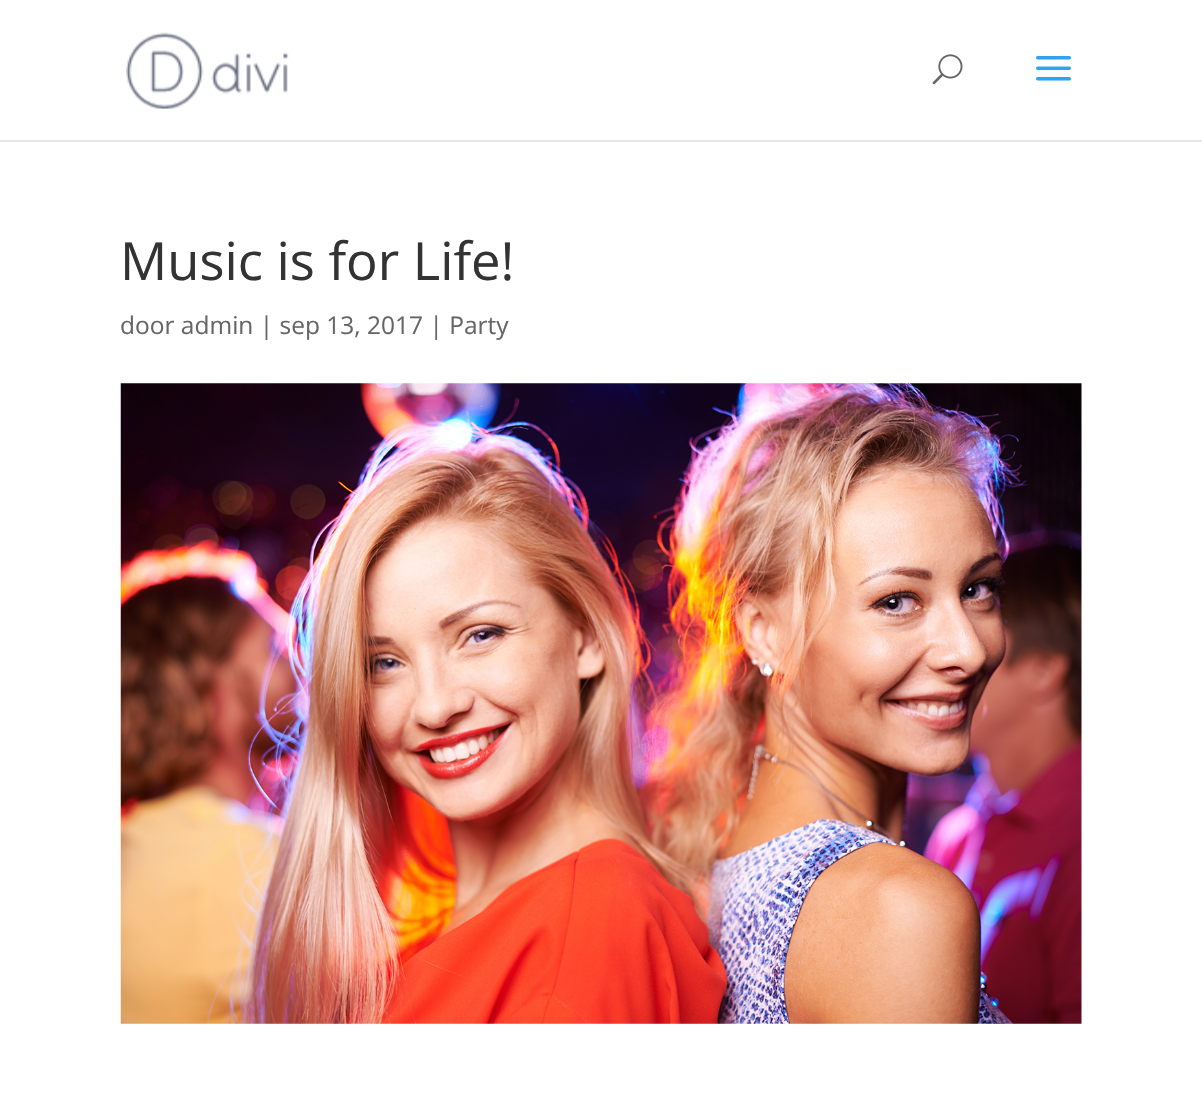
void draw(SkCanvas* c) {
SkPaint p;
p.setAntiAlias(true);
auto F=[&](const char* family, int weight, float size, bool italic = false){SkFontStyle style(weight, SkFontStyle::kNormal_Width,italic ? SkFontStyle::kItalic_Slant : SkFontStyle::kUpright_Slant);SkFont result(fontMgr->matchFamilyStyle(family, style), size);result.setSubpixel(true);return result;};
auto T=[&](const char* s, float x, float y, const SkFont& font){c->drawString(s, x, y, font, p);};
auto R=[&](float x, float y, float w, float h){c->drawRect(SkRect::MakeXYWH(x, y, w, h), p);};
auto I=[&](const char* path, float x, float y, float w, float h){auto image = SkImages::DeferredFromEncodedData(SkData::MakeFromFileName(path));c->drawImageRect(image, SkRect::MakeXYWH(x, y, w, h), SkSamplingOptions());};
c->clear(0xffffffff);
p.setColor(0xffe6e6e6);
R(0,140,1202,2);
I("1.png",126,32,163,77);
I("2.png",932,54,31,31);
I("3.png",1036,56,35,25);
auto f1 = F("Open Sans",400,52.5);
p.setColor(0xff333333);
T("Music is for Life!",120,280,f1);
auto f2 = F("Open Sans",400,24.5);
p.setColor(0xff666666);
T("door admin | sep 13, 2017 | Party",120,334,f2);
I("4.png",120,383,962,641);
}
